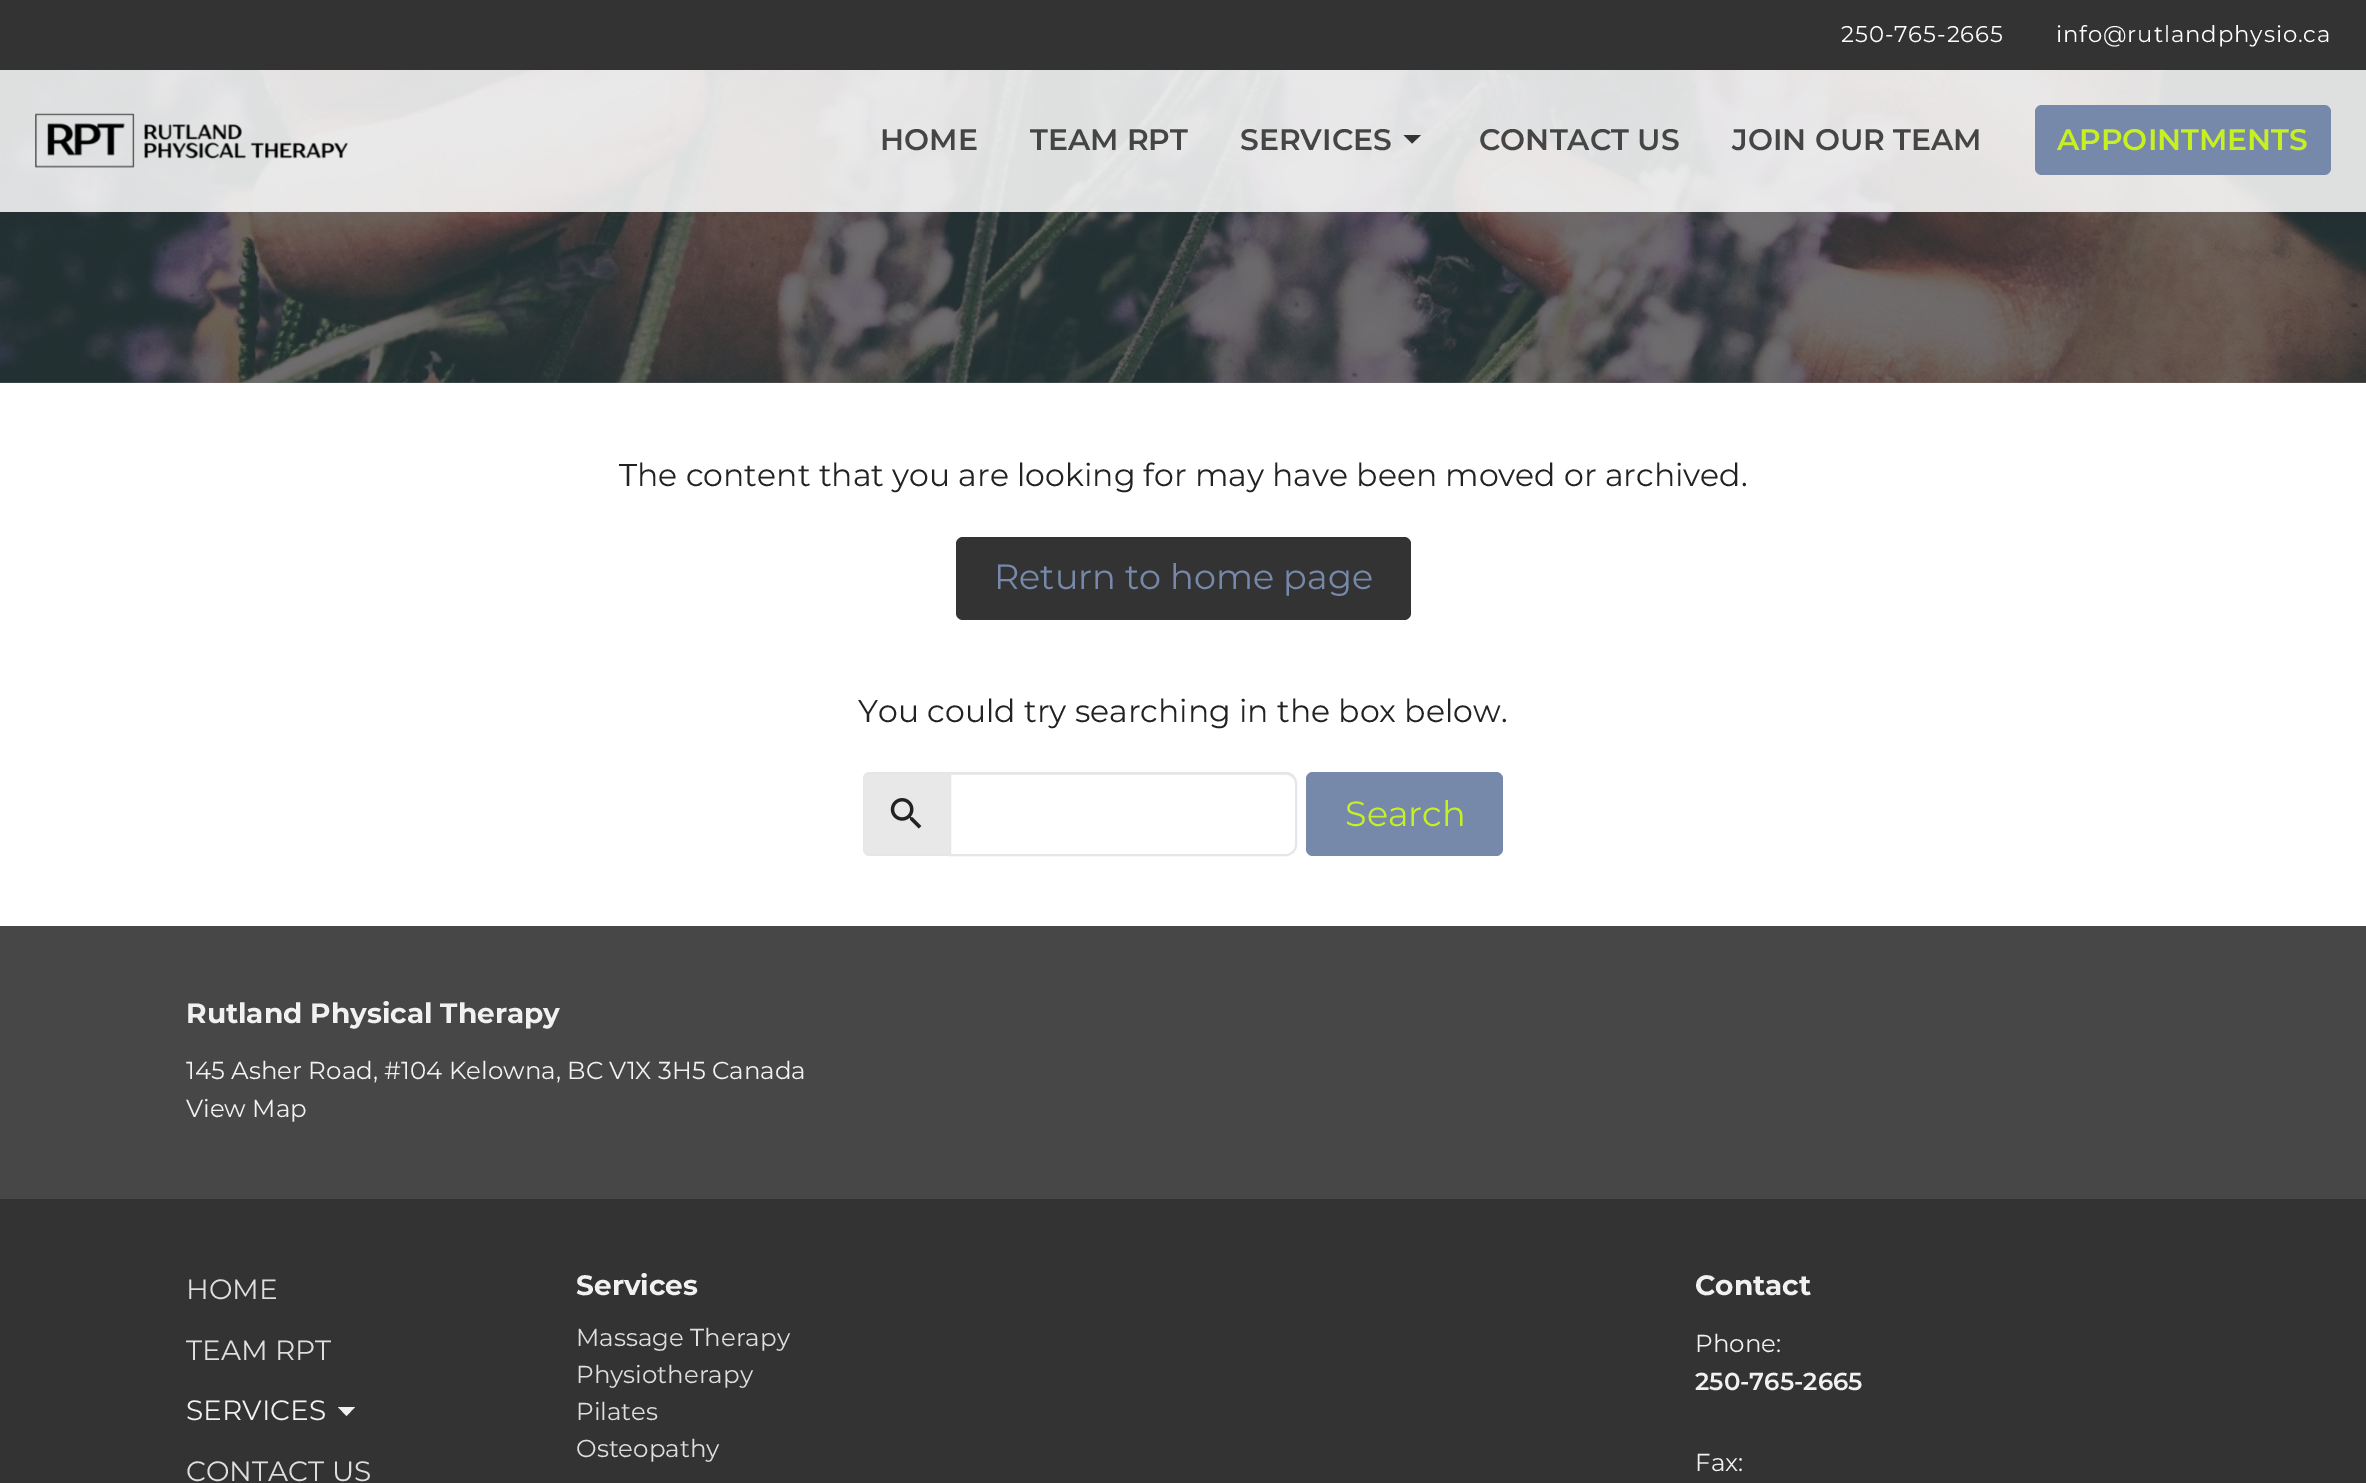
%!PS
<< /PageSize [2366 1483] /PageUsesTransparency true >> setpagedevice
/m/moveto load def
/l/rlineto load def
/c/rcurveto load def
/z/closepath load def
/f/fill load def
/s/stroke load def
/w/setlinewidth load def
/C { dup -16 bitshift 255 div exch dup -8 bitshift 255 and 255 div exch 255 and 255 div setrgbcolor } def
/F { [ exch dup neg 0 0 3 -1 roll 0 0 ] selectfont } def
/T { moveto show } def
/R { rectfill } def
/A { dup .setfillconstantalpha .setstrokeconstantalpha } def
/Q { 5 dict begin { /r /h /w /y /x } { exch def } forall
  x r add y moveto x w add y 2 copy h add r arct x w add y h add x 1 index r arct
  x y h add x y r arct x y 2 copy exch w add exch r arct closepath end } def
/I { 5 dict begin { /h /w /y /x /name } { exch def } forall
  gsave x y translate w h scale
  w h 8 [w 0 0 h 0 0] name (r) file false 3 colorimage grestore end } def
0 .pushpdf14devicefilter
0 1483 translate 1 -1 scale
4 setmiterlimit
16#FFFFFF C
0 0 2366 1483 R
16#333333 C
0 0 2366 70 R
/Montserrat-Regular 22.75 F
16#FFFFFF C
1841 42 m .9 0 (250-765-2665) ashow
2056 42 m .9 0 (info@rutlandphysio.ca) ashow
(2.rgb) 0 70 2366 313 I
0.85 A
0 70 2366 142 R
1 A
(1.rgb) 35 113 313 55 I
/Montserrat-SemiBold 29.75 F
16#454545 C
(HOME) 880 150 T
(TEAM RPT) 1030 150 T
(SERVICES) 1240 150 T
16#333333 C
1403.5 135 m 8.5 8.5 l 9 -8.5 l z f
16#454545 C
(CONTACT US) 1479 150 T
(JOIN OUR TEAM) 1732 150 T
16#7789AB C
2035 105 296 70 7 Q f
16#C7F022 C
(APPOINTMENTS) 2057 150 T
/Montserrat-Regular 31.5 F
16#222222 C
(The content that you are looking for may have been moved or archived.) 619 486 T
16#333333 C
956 537 455 83 7 Q f
/Montserrat-Regular 35 F
16#7789AB C
(Return to home page) 994 589 T
/Montserrat-Regular 31.5 F
16#222222 C
(You could try searching in the box below.) 858 722 T
16#E8E8E8 C
870 772 m 79 0 l 0 84 l -79 0 l -4 0 -7 -3 -7 -7 c 0 -70 l 0 -4 3 -7 7 -7 c z f
16#E6E6E6 C
870 772 m 78 0 l 0 84 l -78 0 l -4 0 -7 -3 -7 -7 c 0 -70 l 0 -4 3 -7 7 -7 c z 870 774 m 78 0 l 0 80 l -78 0 l -3 0 -6 -2 -6 -5 c 0 -70 l 0 -3 3 -5 6 -5 c z eofill
(3.rgb) 890 798 32 31 I
16#ECECEC C
950 775 m 336 0 l 5 0 9 4 9 9 c 0 -5 -3 -10 -9 -10 c -336 0 l z f
16#E6E6E6 C
2 w
950 773 m 336 0 l 5.5 0 10 4.5 10 10 c 0 62 l 0 5.5 -4.5 10 -10 10 c -336 0 l z s
16#7789AB C
1306 772 197 84 7 Q f
/Montserrat-Regular 35 F
16#C7F022 C
(Search) 1345 826 T
16#474747 C
0 926 2366 273 R
/Montserrat-Bold 28 F
16#F1F1F1 C
(Rutland Physical Therapy) 186 1023 T
/Montserrat-Regular 24.5 F
(145 Asher Road, #104 Kelowna, BC V1X 3H5 Canada) 186 1079 T
(View Map) 186 1117 T
16#333333 C
0 1199 2366 284 R
/Montserrat-Regular 28 F
16#DEDEDE C
(HOME) 186 1299 T
(TEAM RPT) 186 1360 T
16#F1F1F1 C
(SERVICES) 186 1420 T
338 1407 m 8.5 9 l 8.5 -9 l z f
16#DEDEDE C
(CONTACT US) 186 1481 T
/Montserrat-Bold 28 F
16#F1F1F1 C
(Services) 576 1295 T
/Montserrat-Regular 24.5 F
16#DEDEDE C
(Massage Therapy) 576 1346 T
(Physiotherapy) 576 1383 T
(Pilates) 576 1420 T
(Osteopathy) 576 1457 T
/Montserrat-Bold 28 F
16#F1F1F1 C
(Contact) 1695 1295 T
/Montserrat-Regular 24.5 F
(Phone:) 1695 1352 T
/Montserrat-SemiBold 24.5 F
(250-765-2665) 1695 1390 T
/Montserrat-Regular 24.5 F
(Fax:) 1695 1471 T
.poppdf14devicefilter showpage
